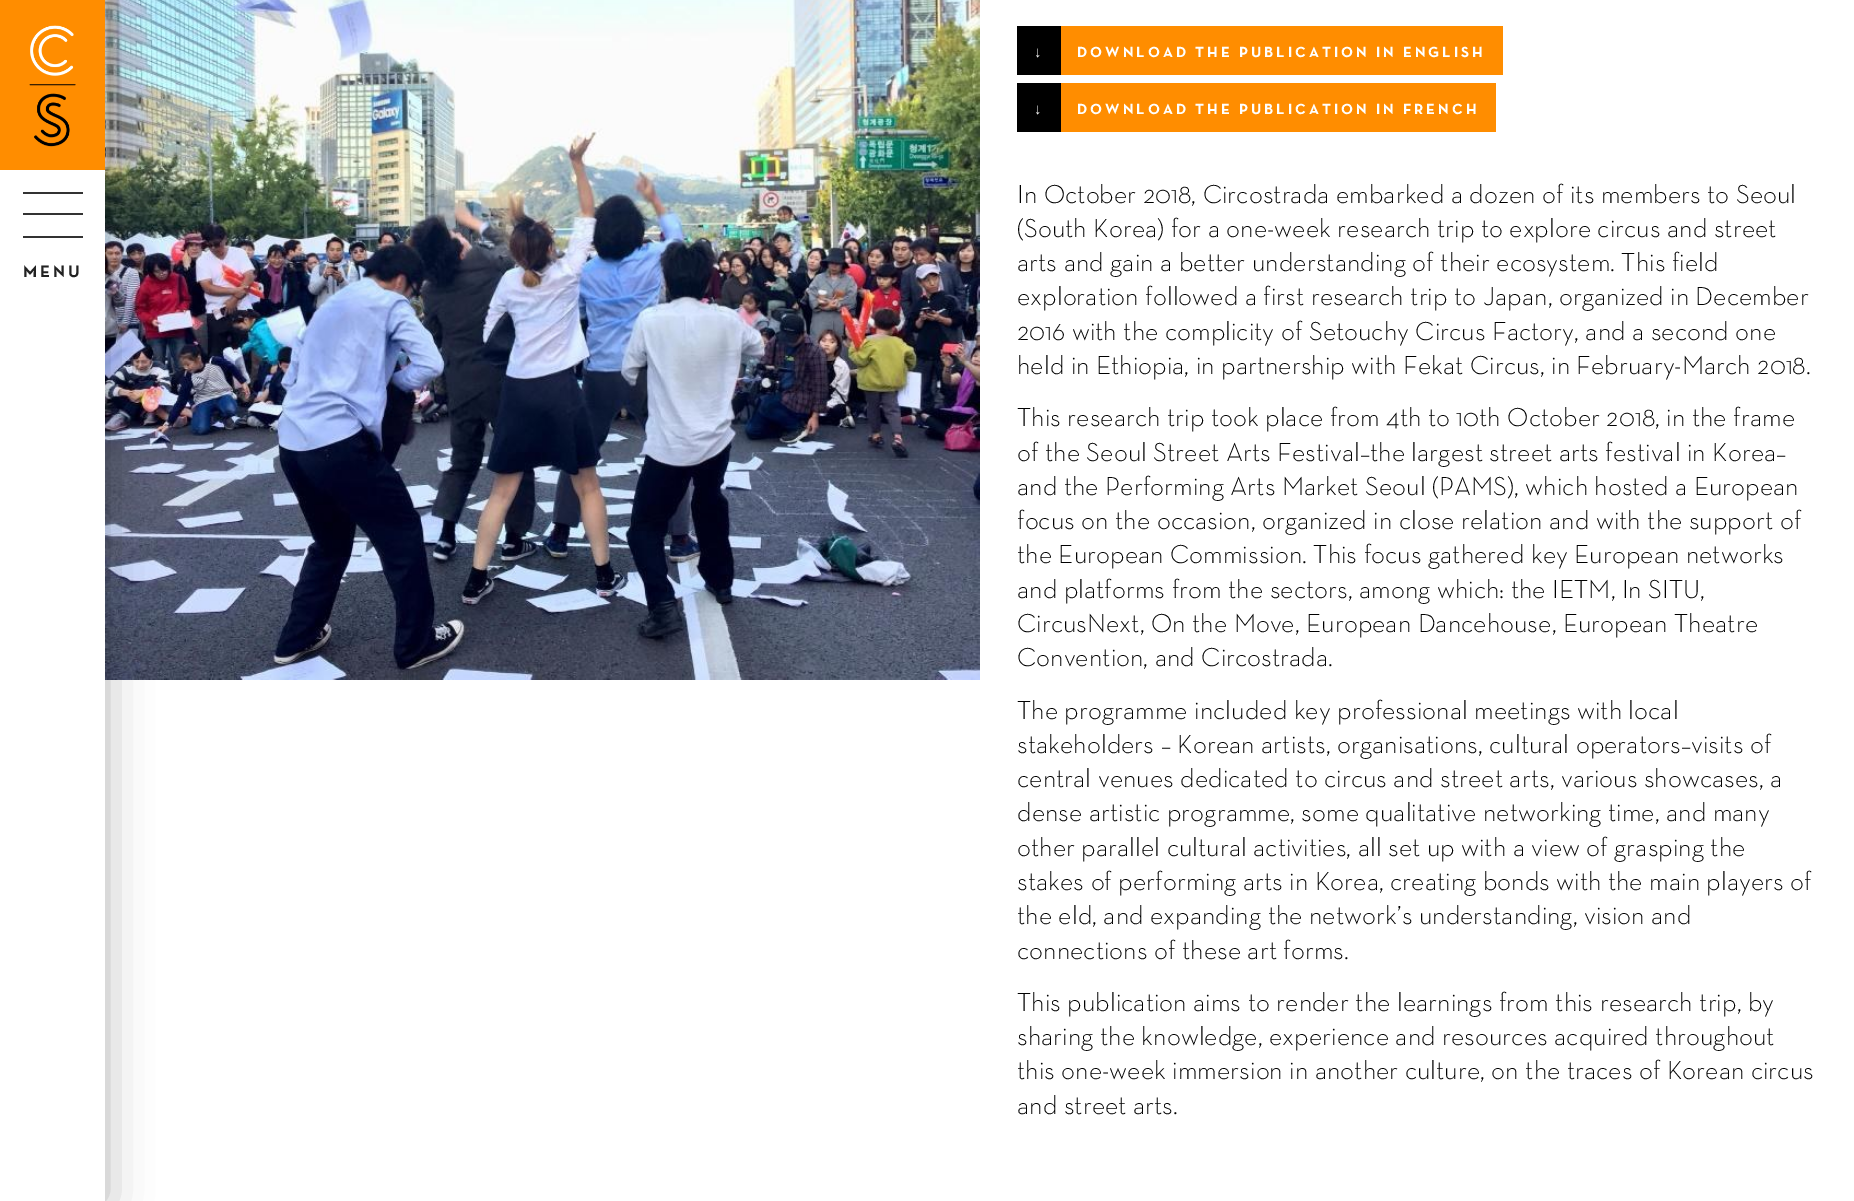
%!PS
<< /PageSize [1854 1201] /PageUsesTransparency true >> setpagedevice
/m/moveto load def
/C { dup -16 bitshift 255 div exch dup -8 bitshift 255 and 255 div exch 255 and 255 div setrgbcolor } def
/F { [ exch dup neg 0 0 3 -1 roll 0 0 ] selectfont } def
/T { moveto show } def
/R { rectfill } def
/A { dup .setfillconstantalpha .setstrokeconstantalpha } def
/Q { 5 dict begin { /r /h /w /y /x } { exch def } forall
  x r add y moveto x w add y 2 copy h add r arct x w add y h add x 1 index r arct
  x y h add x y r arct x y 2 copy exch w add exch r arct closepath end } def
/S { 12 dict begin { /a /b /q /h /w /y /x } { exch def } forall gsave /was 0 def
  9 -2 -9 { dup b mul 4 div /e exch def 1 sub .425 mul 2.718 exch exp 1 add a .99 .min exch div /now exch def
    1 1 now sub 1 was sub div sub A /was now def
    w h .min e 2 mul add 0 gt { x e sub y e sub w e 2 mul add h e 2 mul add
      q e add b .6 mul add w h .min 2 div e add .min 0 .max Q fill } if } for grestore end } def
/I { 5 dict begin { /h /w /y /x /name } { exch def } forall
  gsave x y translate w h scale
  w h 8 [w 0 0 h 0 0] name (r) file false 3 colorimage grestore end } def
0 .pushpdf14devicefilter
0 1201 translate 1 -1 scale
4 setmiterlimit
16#FFFFFF C
0 0 1854 1201 R
(2.rgb) 105 0 875 680 I
16#000000 C
0 0 105 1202 0 22.5 .3 S
16#FF8D00 C
0 0 105 170 R
(1.rgb) 29 25 47 122 I
16#FFFFFF C
0 170 105 1031 R
16#333333 C
23 192 60 2 R
23 236 60 2 R
23 213 60 2 R
/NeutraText-Bold 17 F
16#222222 C
23 277 m 3 0 (MENU) ashow
16#FF8D00 C
1061 26 442 49 R
16#000000 C
1017 26 44 49 R
/LiberationSans-Bold 15 F
16#FFFFFF C
1034 57 m 3 0 (↓) ashow
/NeutraText-Bold 15 F
1077 57 m 3 0 (DOWNLOAD THE PUBLICATION IN ENGLISH) ashow
16#FF8D00 C
1061 83 435 49 R
16#000000 C
1017 83 44 49 R
/LiberationSans-Bold 15 F
16#FFFFFF C
1034 114 m 3 0 (↓) ashow
/NeutraText-Bold 15 F
1077 114 m 3 0 (DOWNLOAD THE PUBLICATION IN FRENCH) ashow
/NeutraText-Light 26.4 F
16#000000 C
(In October 2018, Circostrada embarked a dozen of its members to Seoul) 1017 203 T
(\(South Korea\) for a one-week research trip to explore circus and street) 1017 237 T
(arts and gain a better understanding of their ecosystem. This field) 1017 271 T
(exploration followed a first research trip to Japan, organized in December) 1017 305 T
(2016 with the complicity of Setouchy Circus Factory, and a second one) 1017 340 T
(held in Ethiopia, in partnership with Fekat Circus, in February-March 2018.) 1017 374 T
(This research trip took place from 4th to 10th October 2018, in the frame) 1017 426 T
(of the Seoul Street Arts Festival–the largest street arts festival in Korea–) 1017 461 T
(and the Performing Arts Market Seoul \(PAMS\), which hosted a European) 1017 495 T
(focus on the occasion, organized in close relation and with the support of) 1017 529 T
(the European Commission. This focus gathered key European networks) 1017 563 T
(and platforms from the sectors, among which: the IETM, In SITU,) 1017 598 T
(CircusNext, On the Move, European Dancehouse, European Theatre) 1017 632 T
(Convention, and Circostrada.) 1017 666 T
(The programme included key professional meetings with local) 1017 719 T
(stakeholders – Korean artists, organisations, cultural operators–visits of) 1017 753 T
(central venues dedicated to circus and street arts, various showcases, a) 1017 787 T
(dense artistic programme, some qualitative networking time, and many) 1017 821 T
(other parallel cultural activities, all set up with a view of grasping the) 1017 856 T
(stakes of performing arts in Korea, creating bonds with the main players of) 1017 890 T
(the eld, and expanding the network’s understanding, vision and) 1017 924 T
(connections of these art forms.) 1017 959 T
(This publication aims to render the learnings from this research trip, by) 1017 1011 T
(sharing the knowledge, experience and resources acquired throughout) 1017 1045 T
(this one-week immersion in another culture, on the traces of Korean circus) 1017 1079 T
(and street arts.) 1017 1114 T
.poppdf14devicefilter showpage
